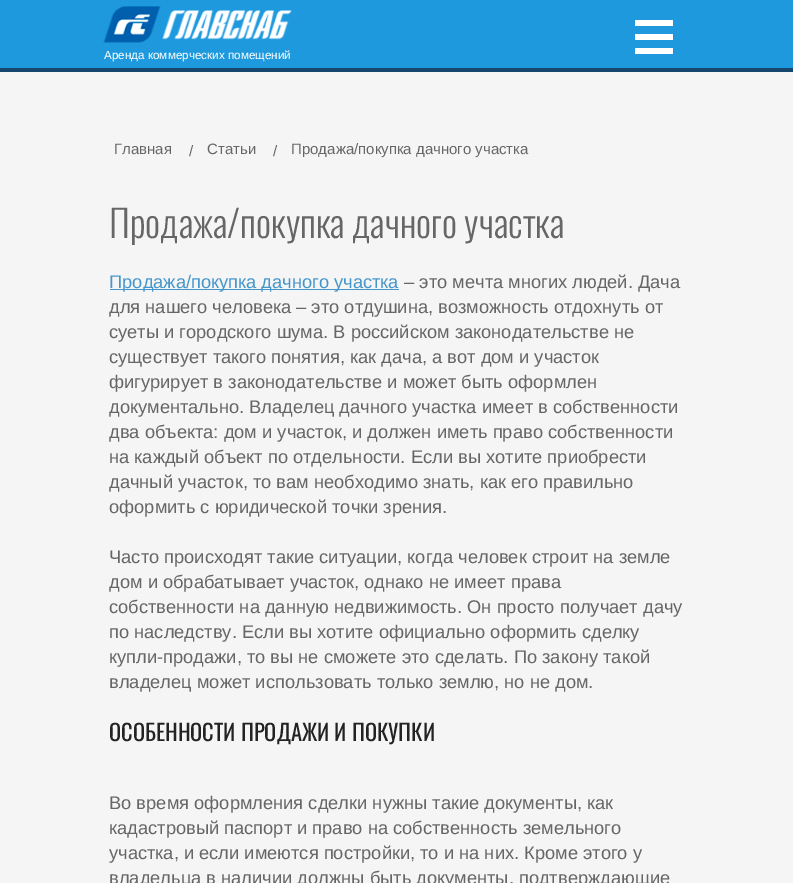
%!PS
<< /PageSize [793 883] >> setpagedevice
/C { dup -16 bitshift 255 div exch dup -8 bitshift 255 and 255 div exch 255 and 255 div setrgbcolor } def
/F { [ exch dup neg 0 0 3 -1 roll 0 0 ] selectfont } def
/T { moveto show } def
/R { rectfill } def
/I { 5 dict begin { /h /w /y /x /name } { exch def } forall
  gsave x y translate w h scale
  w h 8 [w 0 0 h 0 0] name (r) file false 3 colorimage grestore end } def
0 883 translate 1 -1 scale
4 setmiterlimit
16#17476F C
0 0 793 883 R
16#1E99DE C
0 0 793 68 R
16#FFFFFF C
635 20 38 6 R
635 34 38 6 R
635 48 38 6 R
(1.rgb) 103 6 189 37 I
/LiberationSans-Regular 11.7 F
(Аренда коммерческих помещений) 104 59 T
16#F5F5F5 C
0 72 793 811 R
/LiberationSans-Regular 15 F
16#666666 C
(Главная) 114 154 T
(/) 189 156 T
(Статьи) 207 154 T
(/) 273 156 T
(Продажа/покупка дачного участка) 291 154 T
/Oswald-Light 37.5 F
(Продажа/покупка дачного участка) 109 238 T
16#4596CB C
110 289 289 1 R
/LiberationSans-Regular 18.3 F
(Продажа/покупка дачного участка) 109 288 T
16#666666 C
(– это мечта многих людей. Дача) 404 288 T
(для нашего человека – это отдушина, возможность отдохнуть от) 109 313 T
(суеты и городского шума. В российском законодательстве не) 109 338 T
(существует такого понятия, как дача, а вот дом и участок) 109 363 T
(фигурирует в законодательстве и может быть оформлен) 109 388 T
(документально. Владелец дачного участка имеет в собственности) 109 413 T
(два объекта: дом и участок, и должен иметь право собственности) 109 438 T
(на каждый объект по отдельности. Если вы хотите приобрести) 109 463 T
(дачный участок, то вам необходимо знать, как его правильно) 109 488 T
(оформить с юридической точки зрения.) 109 513 T
(Часто происходят такие ситуации, когда человек строит на земле) 109 563 T
(дом и обрабатывает участок, однако не имеет права) 109 588 T
(собственности на данную недвижимость. Он просто получает дачу) 109 613 T
(по наследству. Если вы хотите официально оформить сделку) 109 638 T
(купли-продажи, то вы не сможете это сделать. По закону такой) 109 663 T
(владелец может использовать только землю, но не дом.) 109 688 T
/Oswald-Regular 22.5 F
16#242222 C
(ОСОБЕННОСТИ ПРОДАЖИ И ПОКУПКИ) 109 741 T
/LiberationSans-Regular 18.3 F
16#666666 C
(Во время оформления сделки нужны такие документы, как) 109 809 T
(кадастровый паспорт и право на собственность земельного) 109 834 T
(участка, и если имеются постройки, то и на них. Кроме этого у) 109 859 T
(владельца в наличии должны быть документы, подтверждающие) 109 884 T
showpage
